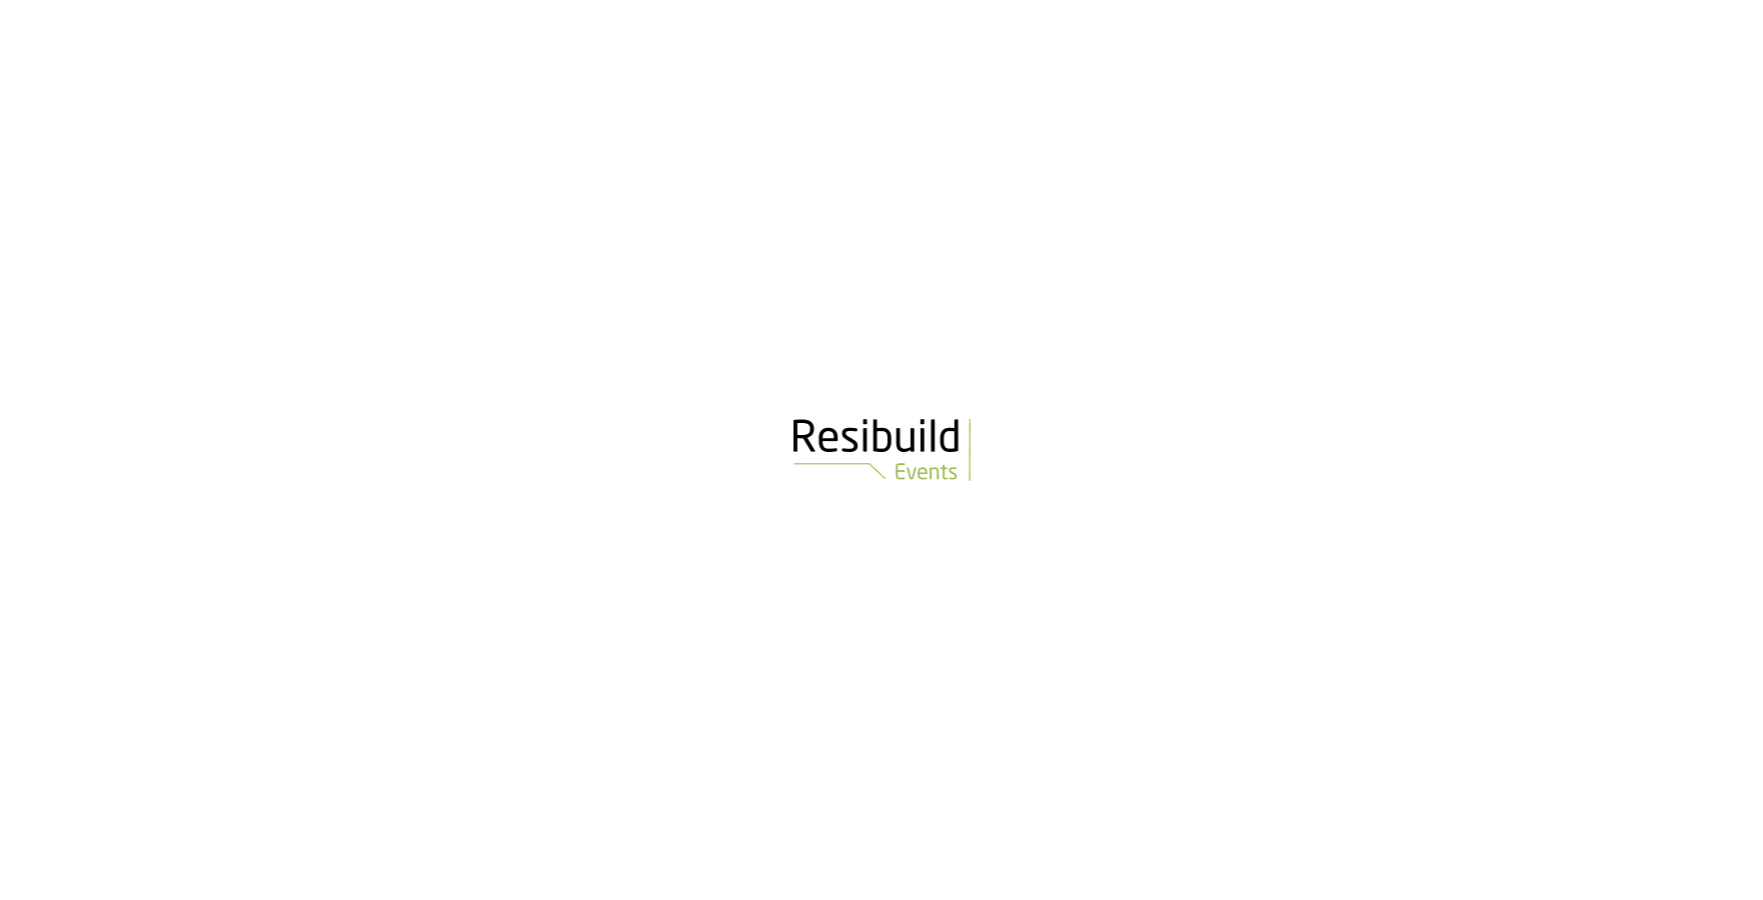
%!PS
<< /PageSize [1763 900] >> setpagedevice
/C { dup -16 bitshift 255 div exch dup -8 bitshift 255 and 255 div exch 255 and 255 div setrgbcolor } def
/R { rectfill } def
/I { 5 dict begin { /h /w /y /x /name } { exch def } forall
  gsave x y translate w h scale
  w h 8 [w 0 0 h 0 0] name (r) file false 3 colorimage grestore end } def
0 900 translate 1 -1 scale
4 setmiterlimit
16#FFFFFF C
0 0 1763 900 R
(1.rgb) 793 419 178 62 I
showpage
